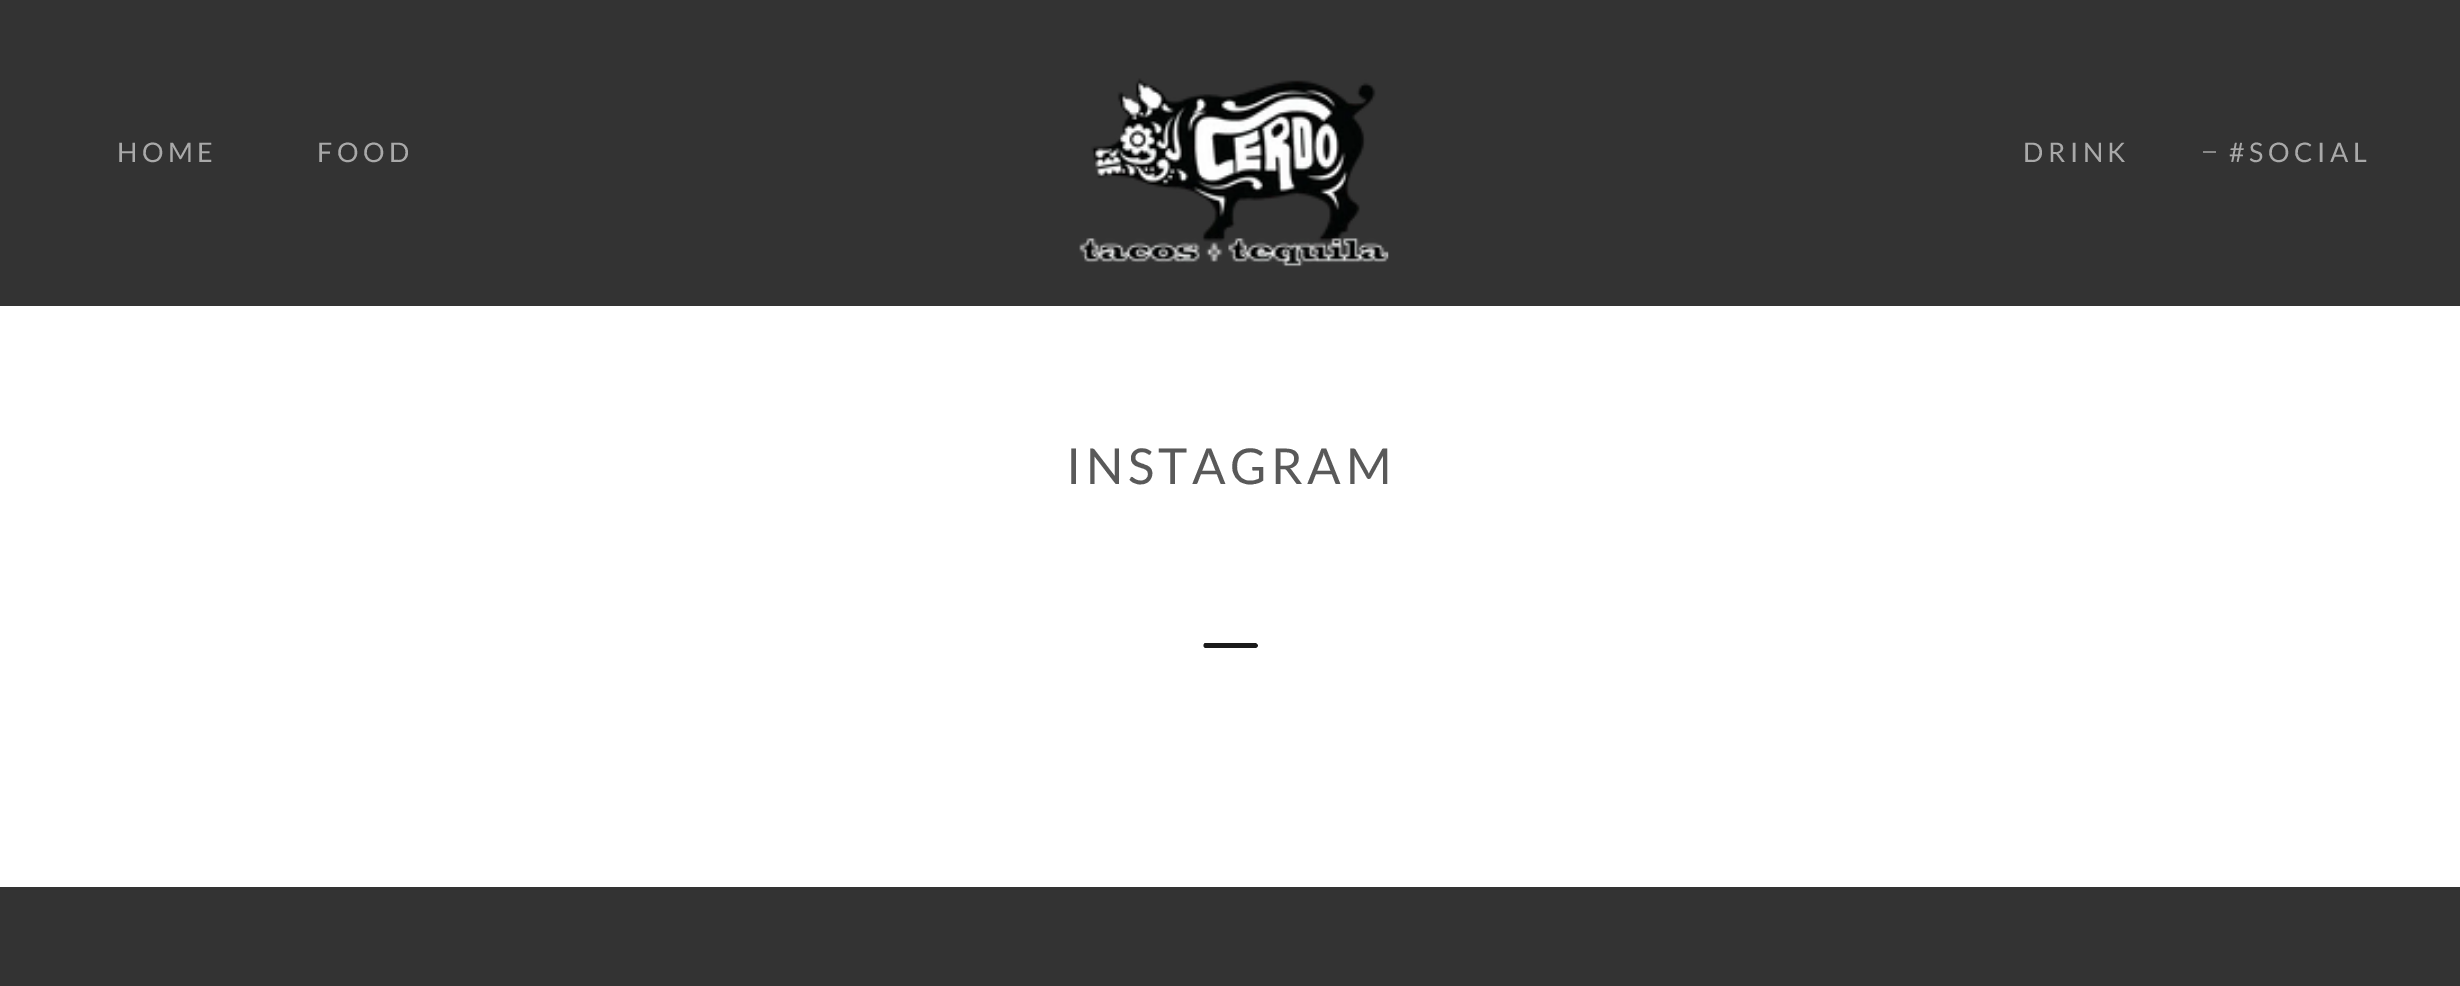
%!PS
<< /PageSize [2460 986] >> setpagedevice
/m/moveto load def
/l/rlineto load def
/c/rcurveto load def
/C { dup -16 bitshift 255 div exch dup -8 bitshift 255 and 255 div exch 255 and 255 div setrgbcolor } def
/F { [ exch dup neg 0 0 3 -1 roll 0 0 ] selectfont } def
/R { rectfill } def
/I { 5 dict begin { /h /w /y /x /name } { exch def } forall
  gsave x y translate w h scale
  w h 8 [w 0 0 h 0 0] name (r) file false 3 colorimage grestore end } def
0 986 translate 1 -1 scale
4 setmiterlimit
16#333333 C
0 0 2460 986 R
/Lato-Regular 27 F
16#A9A9A9 C
117 162 m 4.5 0 (HOME) ashow
317 162 m 4.5 0 (FOOD) ashow
(1.rgb) 1079 78 310 189 I
2023 162 m 4.5 0 (DRINK) ashow
16#898989 C
2203 151 13 2 R
16#A9A9A9 C
2229 162 m 4.5 0 (#SOCIAL) ashow
16#FFFFFF C
0 306 2460 581 R
/Lato-Regular 49.5 F
16#595959 C
1066 484 m 4.5 0 (INSTAGRAM) ashow
16#1B1B1B C
1255 648 m -49 0 l -3 0 -3 -4 -1 -5 c 51 0 l 2 2 l 0 1 -1 3 -3 3 c eofill
showpage
